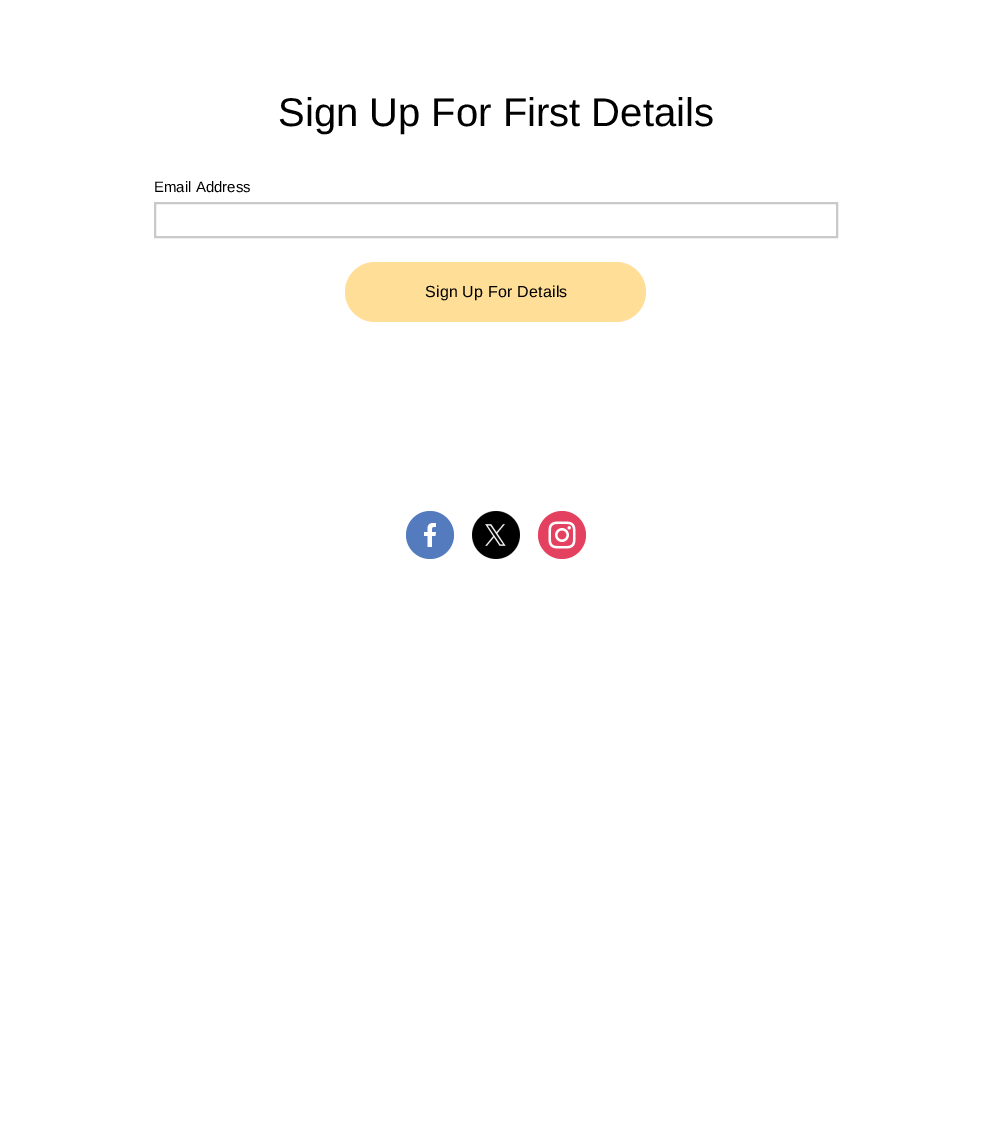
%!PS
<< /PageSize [991 1128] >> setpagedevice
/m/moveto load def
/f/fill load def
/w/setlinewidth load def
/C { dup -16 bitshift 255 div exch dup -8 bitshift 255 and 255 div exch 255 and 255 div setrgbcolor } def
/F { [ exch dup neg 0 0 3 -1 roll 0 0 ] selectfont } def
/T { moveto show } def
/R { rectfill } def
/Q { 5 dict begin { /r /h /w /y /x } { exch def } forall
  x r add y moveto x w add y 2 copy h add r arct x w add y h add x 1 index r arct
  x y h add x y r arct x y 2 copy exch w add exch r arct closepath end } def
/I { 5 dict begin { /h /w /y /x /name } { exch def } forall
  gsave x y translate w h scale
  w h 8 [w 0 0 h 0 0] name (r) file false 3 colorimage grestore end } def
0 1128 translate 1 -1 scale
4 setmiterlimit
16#FFFFFF C
0 0 991 1128 R
/LiberationSans-Regular 40 F
16#000000 C
(Sign Up For First Details) 278 126 T
/LiberationSans-Regular 15 F
(Email Address) 154 192 T
16#C9C9C9 C
2 w
155 203 682 34 rectstroke
16#FFDE97 C
345 262 301 60 30 Q f
/LiberationSans-Regular 16 F
16#000000 C
425 297 m .2 0 (Sign Up For Details) ashow
(1.rgb) 406 511 48 48 I
(2.rgb) 472 511 48 48 I
(3.rgb) 538 511 48 48 I
showpage
